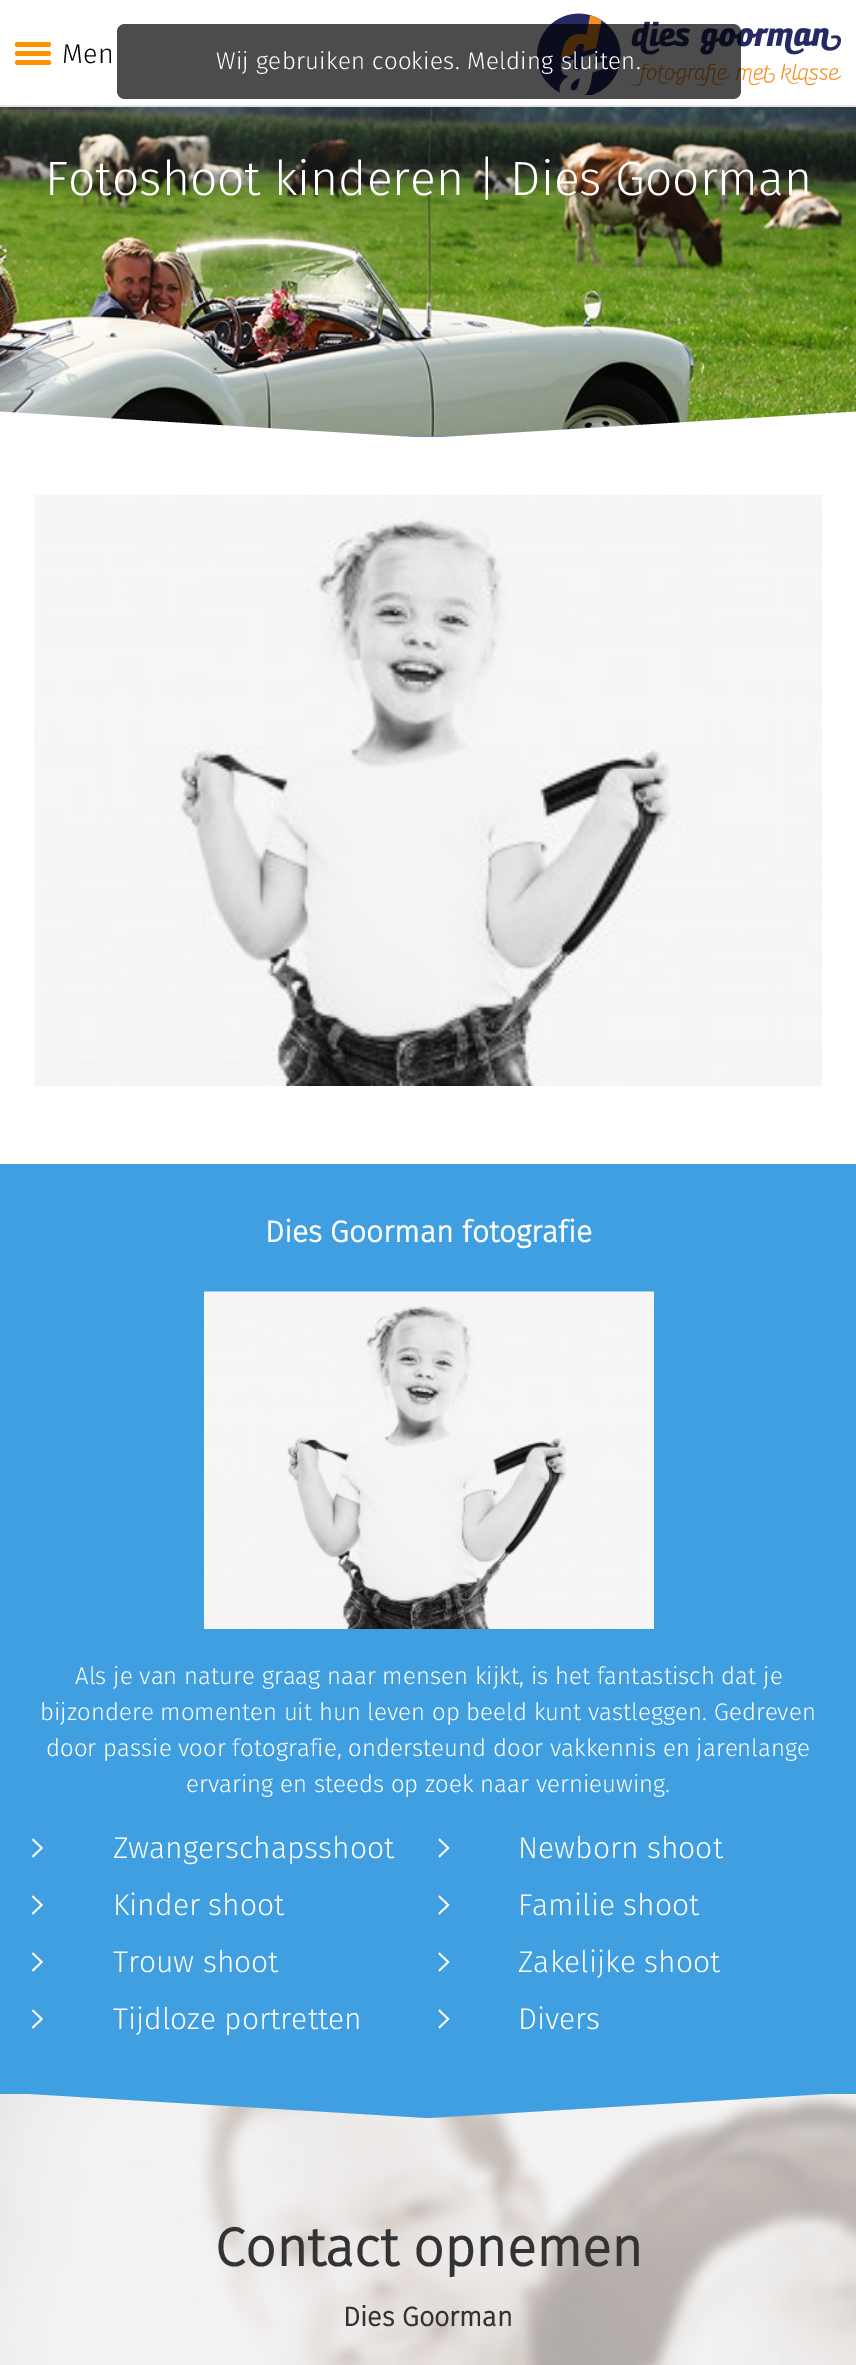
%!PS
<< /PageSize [856 2365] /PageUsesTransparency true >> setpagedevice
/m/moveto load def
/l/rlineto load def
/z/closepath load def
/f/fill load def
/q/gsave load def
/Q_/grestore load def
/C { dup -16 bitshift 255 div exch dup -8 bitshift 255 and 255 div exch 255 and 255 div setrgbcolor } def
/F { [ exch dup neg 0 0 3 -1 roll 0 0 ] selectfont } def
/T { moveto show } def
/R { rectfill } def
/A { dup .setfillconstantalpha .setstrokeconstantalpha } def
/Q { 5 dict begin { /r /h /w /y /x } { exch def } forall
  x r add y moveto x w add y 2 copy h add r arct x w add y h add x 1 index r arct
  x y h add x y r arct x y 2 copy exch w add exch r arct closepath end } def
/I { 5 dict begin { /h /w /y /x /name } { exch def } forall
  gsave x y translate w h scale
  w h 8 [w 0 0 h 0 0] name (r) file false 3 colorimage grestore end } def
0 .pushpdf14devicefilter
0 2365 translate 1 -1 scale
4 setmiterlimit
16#FFFFFF C
0 0 856 2365 R
16#E3E6E8 C
0 105 856 2 R
(1.rgb) 537 13 305 82 I
16#FF9000 C
15 51 36 5 2.5 Q f
15 42 36 5 2.5 Q f
15 60 36 5 2.5 Q f
/FiraSans-Light 27 F
16#000000 C
(Men) 62 63 T
0.7 A
117 24 624 75 8 Q f
/FiraSans-Light 24 F
1 A
16#FFFFFF C
216 69 m .25 0 (Wij gebruiken cookies. Melding sluiten.) ashow
16#409FE1 C
396 436 65 1 R
(2.rgb) 0 107 856 330 I
/FiraSans-Light 48 F
16#FFFFFF C
(Fotoshoot kinderen | Dies Goorman) 45 195 T
q
0 378 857 59 rectclip
428 438 m -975 -60 l 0 60 l 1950 0 l 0 -60 l z f
Q_
(3.rgb) 34 495 788 591 I
16#409FE1 C
0 1164 856 930 R
/FiraSans-Bold 30 F
16#FFFFFF C
(Dies Goorman fotografie) 265 1242 T
(4.rgb) 204 1291 450 338 I
/FiraSans-Light 24 F
(Als je van nature graag naar mensen kijkt, is het fantastisch dat je) 75 1684 T
(bijzondere momenten uit hun leven op beeld kunt vastleggen. Gedreven) 40 1720 T
(door passie voor fotografie, ondersteund door vakkennis en jarenlange) 46 1756 T
(ervaring en steeds op zoek naar vernieuwing.) 186 1792 T
32 1840 m 1 -1.5 l 10 9.5 l -10 9.5 l -1 -1.5 l 8.5 -8 l f
/FiraSans-Light 30 F
(Zwangerschapsshoot) 113 1858 T
438.5 1840 m 1 -1.5 l 10 9.5 l -10 9.5 l -1 -1.5 l 8.5 -8 l f
(Newborn shoot) 518 1858 T
32 1897 m 1 -1.5 l 10 9.5 l -10 9.5 l -1 -1.5 l 8.5 -8 l f
(Kinder shoot) 113 1915 T
438.5 1897 m 1 -1.5 l 10 9.5 l -10 9.5 l -1 -1.5 l 8.5 -8 l f
(Familie shoot) 518 1915 T
32 1954 m 1 -1.5 l 10 9.5 l -10 9.5 l -1 -1.5 l 8.5 -8 l f
(Trouw shoot) 113 1972 T
438.5 1954 m 1 -1.5 l 10 9.5 l -10 9.5 l -1 -1.5 l 8.5 -8 l f
(Zakelijke shoot) 518 1972 T
32 2011 m 1 -1.5 l 10 9.5 l -10 9.5 l -1 -1.5 l 8.5 -8 l f
(Tijdloze portretten) 113 2029 T
438.5 2011 m 1 -1.5 l 10 9.5 l -10 9.5 l -1 -1.5 l 8.5 -8 l f
(Divers) 518 2029 T
(5.rgb) 0 2094 856 271 I
16#409FE1 C
14 2093 m 414 25 l 414 -25 l z f
/FiraSans-Bold 54 F
16#333333 C
(Contact opnemen) 215 2266 T
/FiraSans-Bold 27 F
(Dies Goorman) 343 2326 T
.poppdf14devicefilter showpage
